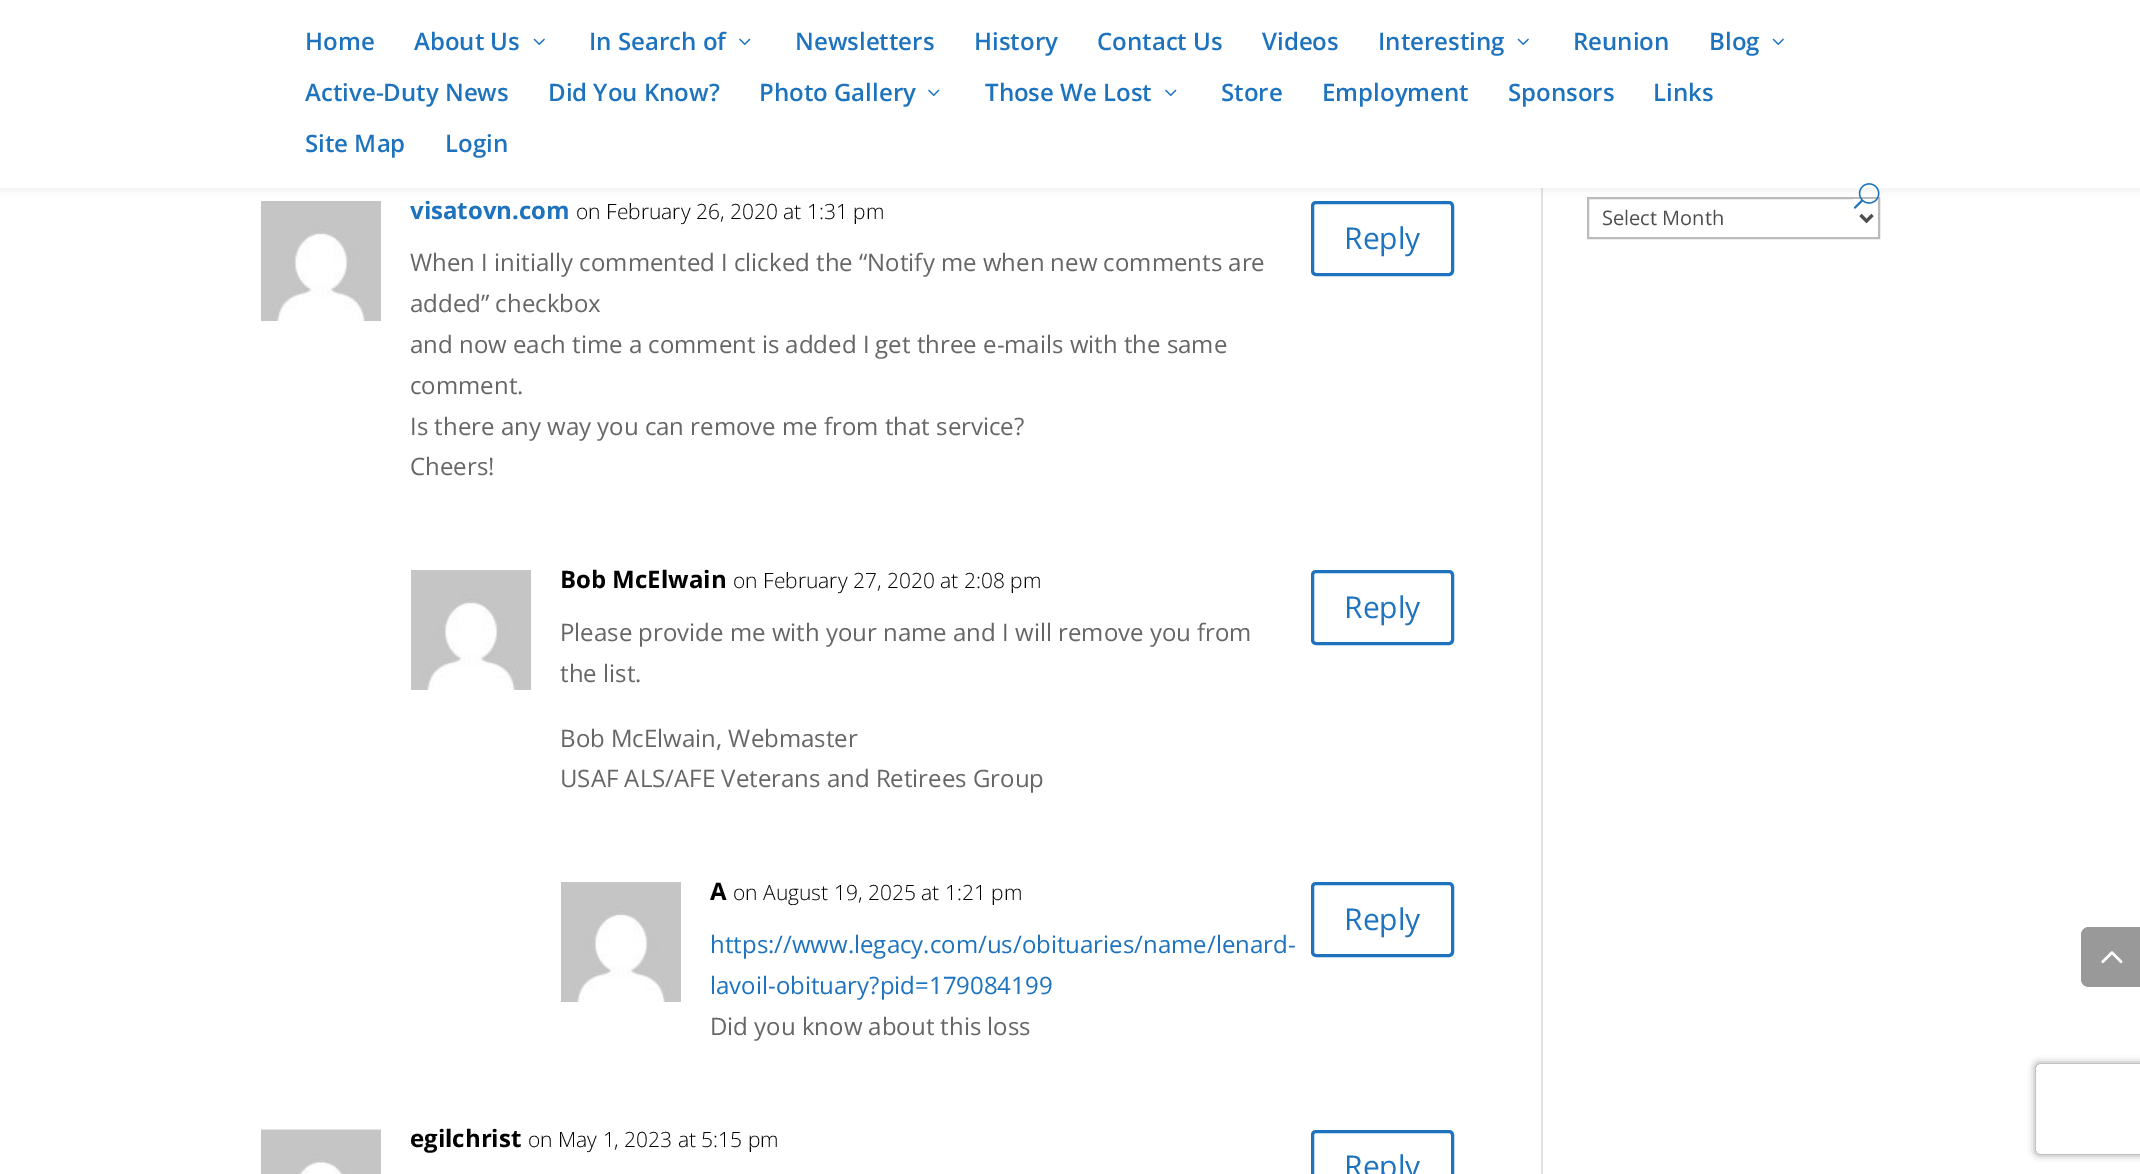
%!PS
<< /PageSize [2140 1174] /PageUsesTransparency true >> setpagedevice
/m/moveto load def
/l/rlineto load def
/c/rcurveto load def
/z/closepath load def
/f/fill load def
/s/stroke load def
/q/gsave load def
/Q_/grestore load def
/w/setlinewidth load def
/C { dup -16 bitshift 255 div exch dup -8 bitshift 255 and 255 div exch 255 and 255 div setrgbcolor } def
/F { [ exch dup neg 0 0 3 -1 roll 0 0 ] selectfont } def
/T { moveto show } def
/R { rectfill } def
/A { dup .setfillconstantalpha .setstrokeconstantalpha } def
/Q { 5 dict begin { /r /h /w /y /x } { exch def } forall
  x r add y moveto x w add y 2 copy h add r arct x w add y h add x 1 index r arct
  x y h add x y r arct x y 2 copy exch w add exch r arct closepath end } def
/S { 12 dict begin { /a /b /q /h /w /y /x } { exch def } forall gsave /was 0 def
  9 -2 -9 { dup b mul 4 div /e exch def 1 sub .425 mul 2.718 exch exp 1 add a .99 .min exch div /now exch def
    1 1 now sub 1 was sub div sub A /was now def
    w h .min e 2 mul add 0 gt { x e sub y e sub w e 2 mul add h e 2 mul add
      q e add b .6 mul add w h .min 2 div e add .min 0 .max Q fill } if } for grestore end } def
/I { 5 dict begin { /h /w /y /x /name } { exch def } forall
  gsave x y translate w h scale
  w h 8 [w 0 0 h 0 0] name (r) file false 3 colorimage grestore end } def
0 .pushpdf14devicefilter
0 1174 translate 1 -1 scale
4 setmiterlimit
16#FFFFFF C
0 0 2140 1174 R
16#E2E2E2 C
1541 188 2 986 R
(4.rgb) 261 201 120 120 I
16#1E73BE C
3 w
1312.5 202.5 140 72 3.5 Q s
16#BBBBBB C
2 w
1588 198 291 40 rectstroke
16#000000 C
0 0 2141 188 0 5 .1 S
16#FFFFFF C
0 0 2140 188 R
/OpenSans-SemiBold 24 F
16#1E73BE C
(Home) 305 50 T
(About Us) 414 50 T
(1.rgb) 533 38 12 7 I
(In Search of) 589 50 T
(2.rgb) 739 38 12 7 I
(Newsletters) 795 50 T
(History) 974 50 T
(Contact Us) 1097 50 T
(Videos) 1262 50 T
(Interesting) 1378 50 T
(1.rgb) 1517 38 12 7 I
(Reunion) 1573 50 T
(Blog) 1709 50 T
(1.rgb) 1772 38 12 7 I
(Active-Duty News) 305 101 T
(Did You Know?) 548 101 T
(Photo Gallery) 759 101 T
(2.rgb) 928 89 12 7 I
(Those We Lost) 985 101 T
(2.rgb) 1165 89 12 7 I
(Store) 1221 101 T
(Employment) 1322 101 T
(Sponsors) 1508 101 T
(Links) 1653 101 T
(Site Map) 305 152 T
(Login) 445 152 T
(3.rgb) 1853 183 27 26 I
/OpenSans-Bold 24 F
(visatovn.com) 410 219 T
/OpenSans-Light 21 F
16#000000 C
(on February 26, 2020 at 1:31 pm) 576 219 T
/OpenSans-Regular 30 F
16#1E73BE C
(Reply) 1344 249 T
/OpenSans-Regular 24 F
16#666666 C
(When I initially commented I clicked the “Notify me when new comments are) 410 271 T
(added” checkbox) 410 312 T
(and now each time a comment is added I get three e-mails with the same) 410 353 T
(comment.) 410 394 T
(Is there any way you can remove me from that service?) 410 435 T
(Cheers!) 410 475 T
(5.rgb) 411 570 120 120 I
/OpenSans-Bold 24 F
16#000000 C
(Bob McElwain) 560 588 T
/OpenSans-Light 21 F
(on February 27, 2020 at 2:08 pm) 733 588 T
16#1E73BE C
3 w
1312.5 571.5 140 72 3.5 Q s
/OpenSans-Regular 30 F
(Reply) 1344 618 T
/OpenSans-Regular 24 F
16#666666 C
(Please provide me with your name and I will remove you from) 560 641 T
(the list.) 560 682 T
(Bob McElwain, Webmaster) 560 747 T
(USAF ALS/AFE Veterans and Retirees Group) 560 787 T
(6.rgb) 561 882 120 120 I
/OpenSans-Bold 24 F
16#000000 C
(A) 710 900 T
/OpenSans-Light 21 F
(on August 19, 2025 at 1:21 pm) 733 900 T
16#1E73BE C
1312.5 883.5 140 72 3.5 Q s
/OpenSans-Regular 30 F
(Reply) 1344 930 T
/OpenSans-Regular 24 F
(https://www.legacy.com/us/obituaries/name/lenard-) 710 953 T
(lavoil-obituary?pid=179084199) 710 994 T
16#666666 C
(Did you know about this loss) 710 1035 T
(7.rgb) 261 1129 120 45 I
/OpenSans-Bold 24 F
16#000000 C
(egilchrist) 410 1147 T
/OpenSans-Light 21 F
(on May 1, 2023 at 5:15 pm) 528 1147 T
16#1E73BE C
1312.5 1131.5 140 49 3.5 Q s
/OpenSans-Regular 30 F
(Reply) 1344 1177 T
16#4E4E4E C
1860.5 215 m 6 6 l 6 -6 l s
/OpenSans-Regular 20 F
(Select Month) 1602 225 T
16#999999 C
2089 927 m 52 0 l 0 60 l -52 0 l -4.5 0 -8 -3.5 -8 -8 c 0 -44 l 0 -4.5 3.5 -8 8 -8 c z f
(8.rgb) 2101 951 22 13 I
q
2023 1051 m 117 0 l 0 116 l -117 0 l z 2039 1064 m 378 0 l 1.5 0 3 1.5 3 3 c 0 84 l 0 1.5 -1.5 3 -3 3 c -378 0 l -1.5 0 -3 -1.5 -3 -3 c 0 -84 l 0 -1.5 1.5 -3 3 -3 c z eoclip newpath
16#808080 C
2036 1064 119 90 3 4 1 S
Q_
.poppdf14devicefilter showpage
